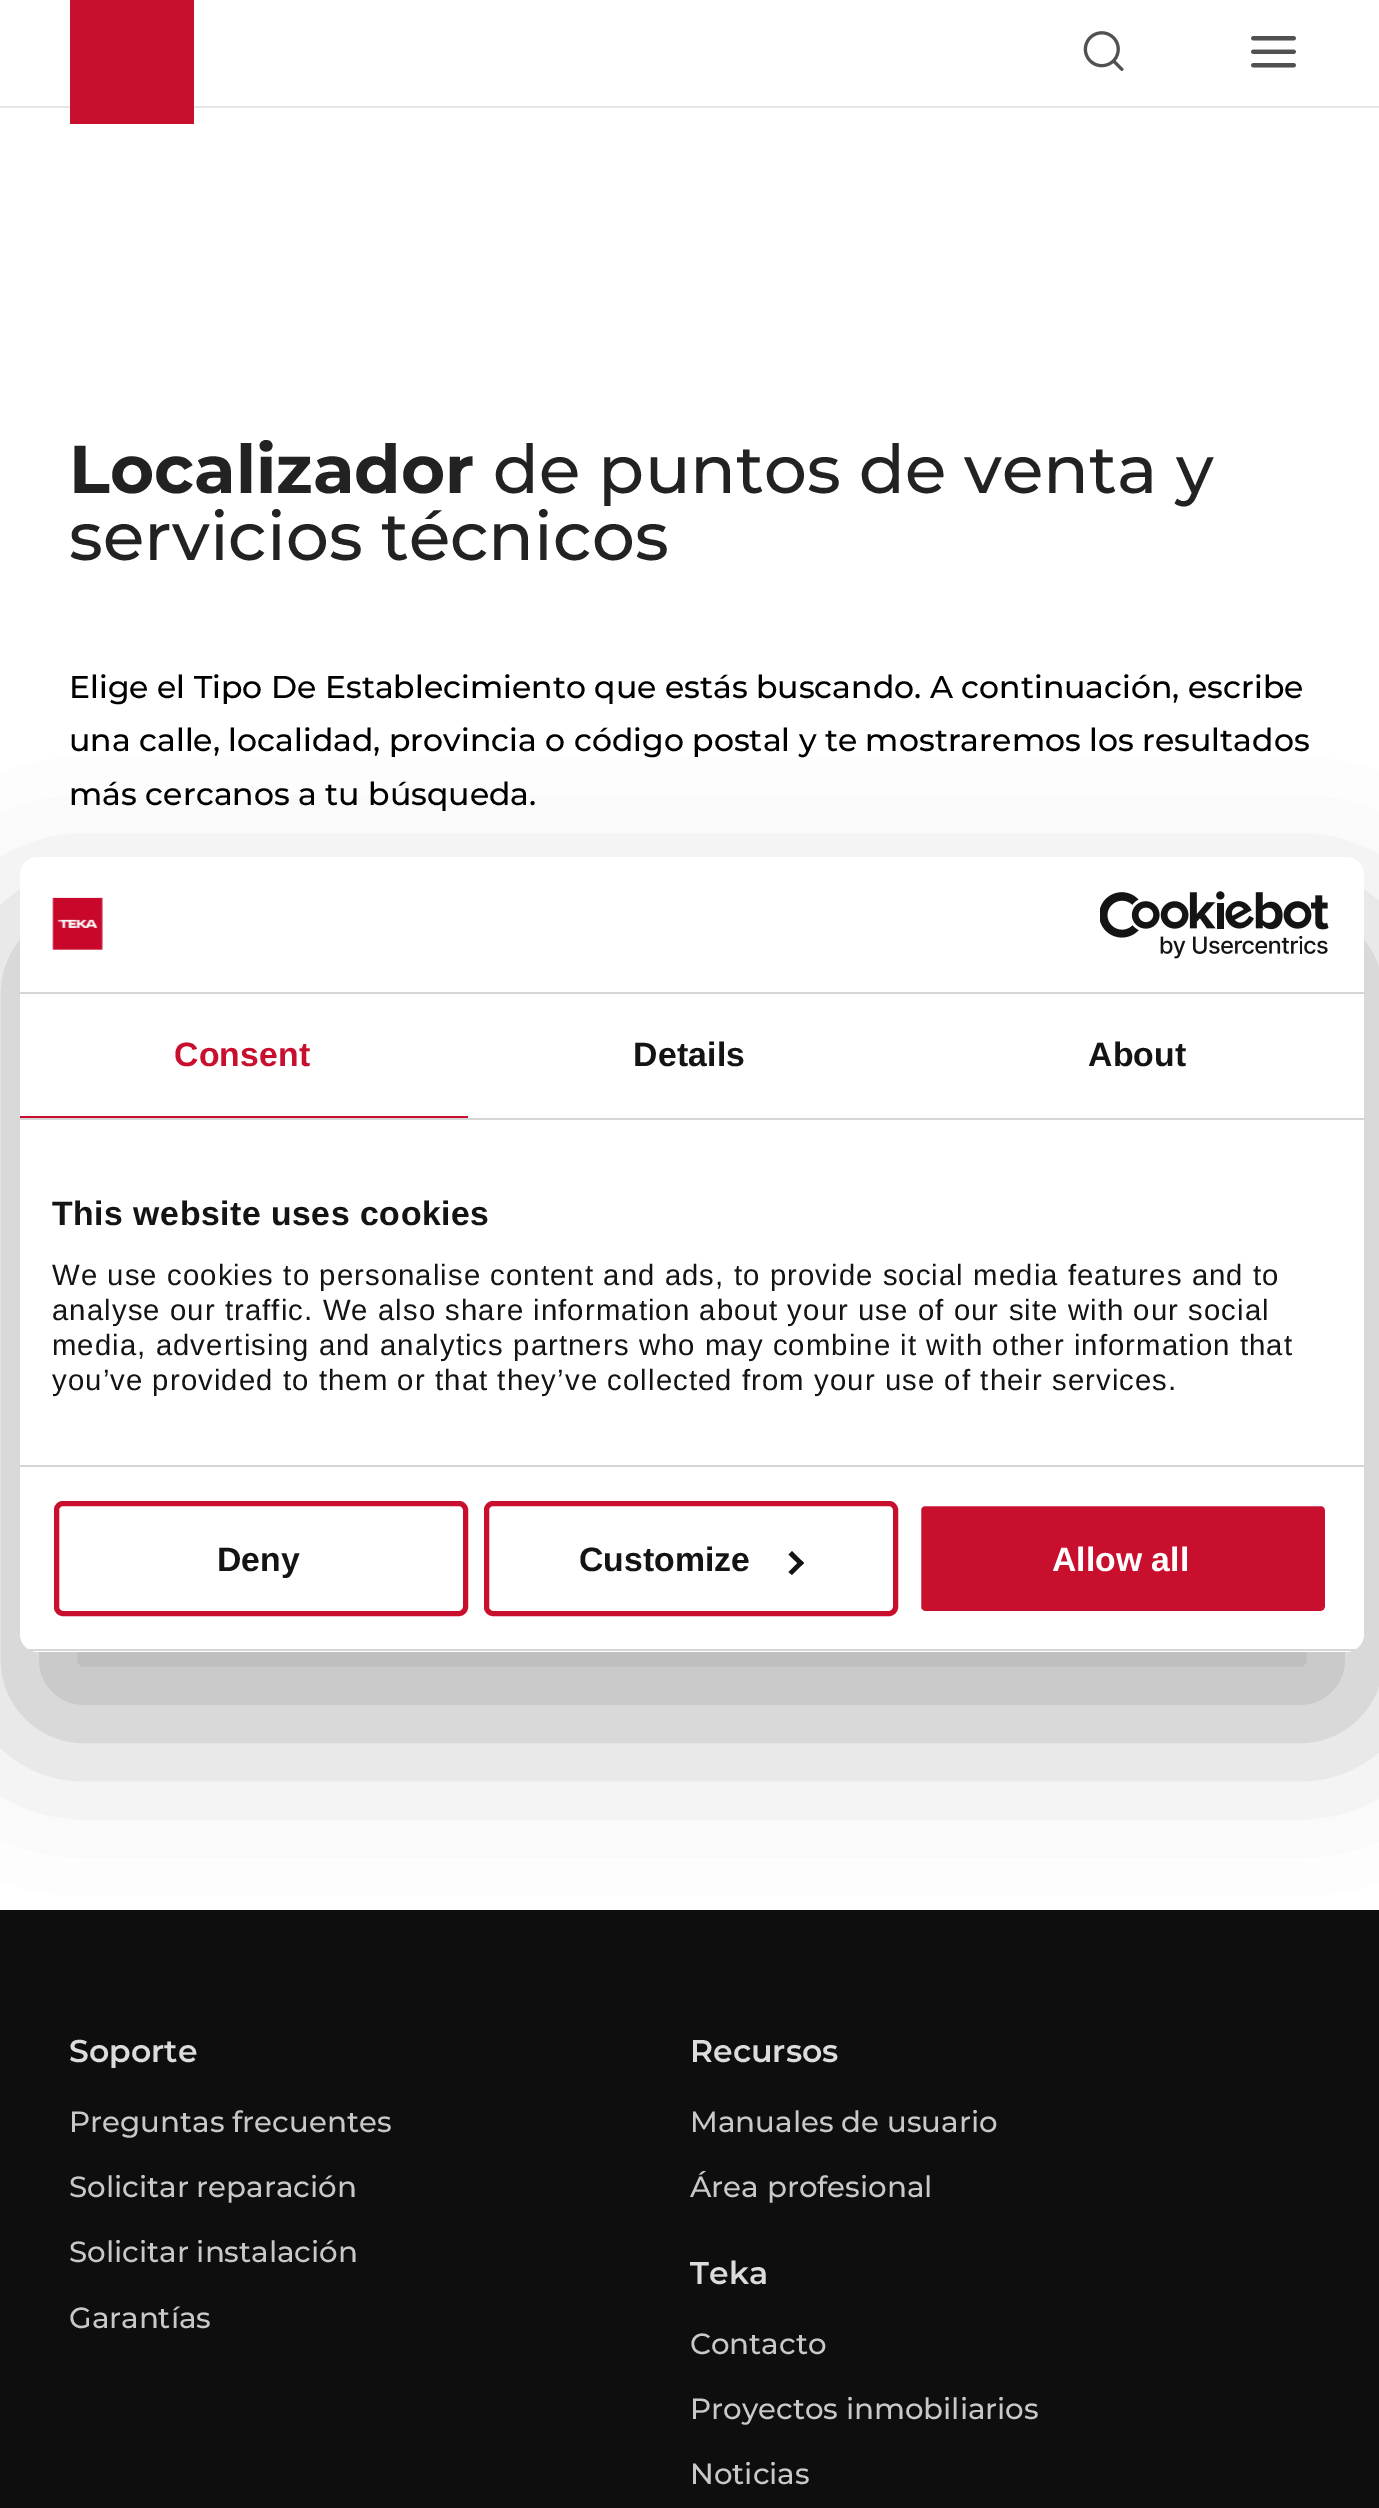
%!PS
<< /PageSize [1379 2508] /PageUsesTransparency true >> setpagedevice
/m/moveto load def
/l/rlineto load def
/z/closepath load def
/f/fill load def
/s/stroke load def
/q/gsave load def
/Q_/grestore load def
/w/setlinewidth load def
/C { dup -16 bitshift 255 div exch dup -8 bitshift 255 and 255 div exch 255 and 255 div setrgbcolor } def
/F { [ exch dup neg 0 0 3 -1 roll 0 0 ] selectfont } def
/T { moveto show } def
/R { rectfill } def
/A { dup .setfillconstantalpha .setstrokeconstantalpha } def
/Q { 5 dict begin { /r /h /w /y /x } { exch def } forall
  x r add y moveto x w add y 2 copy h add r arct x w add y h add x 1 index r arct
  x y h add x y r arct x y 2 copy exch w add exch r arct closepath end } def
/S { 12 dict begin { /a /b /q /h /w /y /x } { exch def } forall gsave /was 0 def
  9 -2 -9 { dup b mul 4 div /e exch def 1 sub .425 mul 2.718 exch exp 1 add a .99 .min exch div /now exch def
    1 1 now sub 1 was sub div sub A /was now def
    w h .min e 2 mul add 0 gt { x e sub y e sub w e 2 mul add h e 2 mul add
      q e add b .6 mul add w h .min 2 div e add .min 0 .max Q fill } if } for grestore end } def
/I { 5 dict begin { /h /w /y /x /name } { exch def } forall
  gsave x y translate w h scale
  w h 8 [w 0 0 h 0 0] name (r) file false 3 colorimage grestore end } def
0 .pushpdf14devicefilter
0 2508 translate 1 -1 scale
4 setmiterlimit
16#FFFFFF C
0 0 1379 2508 R
16#E6E6E6 C
0 106 1379 2 R
16#C8102E C
70 0 124 124 R
(1.rgb) 1083 31 41 40 I
(2.rgb) 1251 36 45 32 I
/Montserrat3-Thin 67.5 F
16#222222 C
(Localizador) 69 493 T
/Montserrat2-Thin 67.5 F
(de puntos de venta y) 493 493 T
(servicios técnicos) 69 560 T
/Montserrat2-Thin 31.5 F
16#000000 C
(Elige el Tipo De Establecimiento que estás buscando. A continuación, escribe) 69 698 T
(una calle, localidad, provincia o código postal y te mostraremos los resultados) 69 751 T
(más cercanos a tu búsqueda.) 69 805 T
16#0E0E0E C
0 1910 1379 598 R
/Montserrat-Thin 31.5 F
16#DCDCDC C
(Soporte) 69 2062 T
/Montserrat2-Thin 29.25 F
16#C8C8C8 C
(Preguntas frecuentes) 69 2132 T
(Solicitar reparación) 69 2197 T
(Solicitar instalación) 69 2262 T
(Garantías) 69 2328 T
/Montserrat-Thin 31.5 F
16#DCDCDC C
(Recursos) 690 2062 T
/Montserrat2-Thin 29.25 F
16#C8C8C8 C
(Manuales de usuario) 690 2132 T
(Área profesional) 690 2197 T
/Montserrat-Thin 31.5 F
16#DCDCDC C
(Teka) 690 2284 T
/Montserrat2-Thin 29.25 F
16#C8C8C8 C
(Contacto) 690 2354 T
(Proyectos inmobiliarios) 690 2419 T
(Noticias) 690 2484 T
16#000000 C
20 929 1344 795 18 76.5 .3 S
16#FFFFFF C
20 857 1344 795 18 Q f
16#D6D6D6 C
20 992 1344 2 R
(3.rgb) 52 897 51 53 I
(4.rgb) 1100 891 229 68 I
20 1118 1344 2 R
16#C8102E C
20 1116 448 2 R
/LiberationSans-Bold 33.75 F
174 1066 m .25 0 (Consent) ashow
16#141414 C
633 1066 m .25 0 (Details) ashow
1088 1066 m .25 0 (About) ashow
16#D6D6D6 C
20 1465 1344 2 R
16#141414 C
52 1225 m .55 0 (This website uses cookies) ashow
/LiberationSans-Regular 29.25 F
52 1285 m 1.12 0 (We use cookies to personalise content and ads, to provide social media features and to) ashow
52 1320 m 1.12 0 (analyse our traffic. We also share information about your use of our site with our social) ashow
52 1355 m 1.12 0 (media, advertising and analytics partners who may combine it with other information that) ashow
52 1390 m 1.12 0 (you’ve provided to them or that they’ve collected from your use of their services.) ashow
q
20 857 1344 795 18 Q clip newpath
16#D6D6D6 C
20 1649 1344 2 R
Q_
16#C8102E C
5 w
56.5 1503.5 409 110 6.5 Q s
/LiberationSans-Bold 33.75 F
16#141414 C
(Deny) 217 1571 T
16#C8102E C
486.5 1503.5 409 110 6.5 Q s
16#141414 C
(Customize) 579 1571 T
792 1551 m 12 12 l -3.5 3 l -12 -11.5 l z f
800.5 1560 m 3.5 3 l -12 12 l -3.5 -3 l z f
16#C8102E C
918.5 1503.5 409 110 6.5 Q q f Q_
16#FFFFFF C
s
(Allow all) 1052 1571 T
.poppdf14devicefilter showpage
